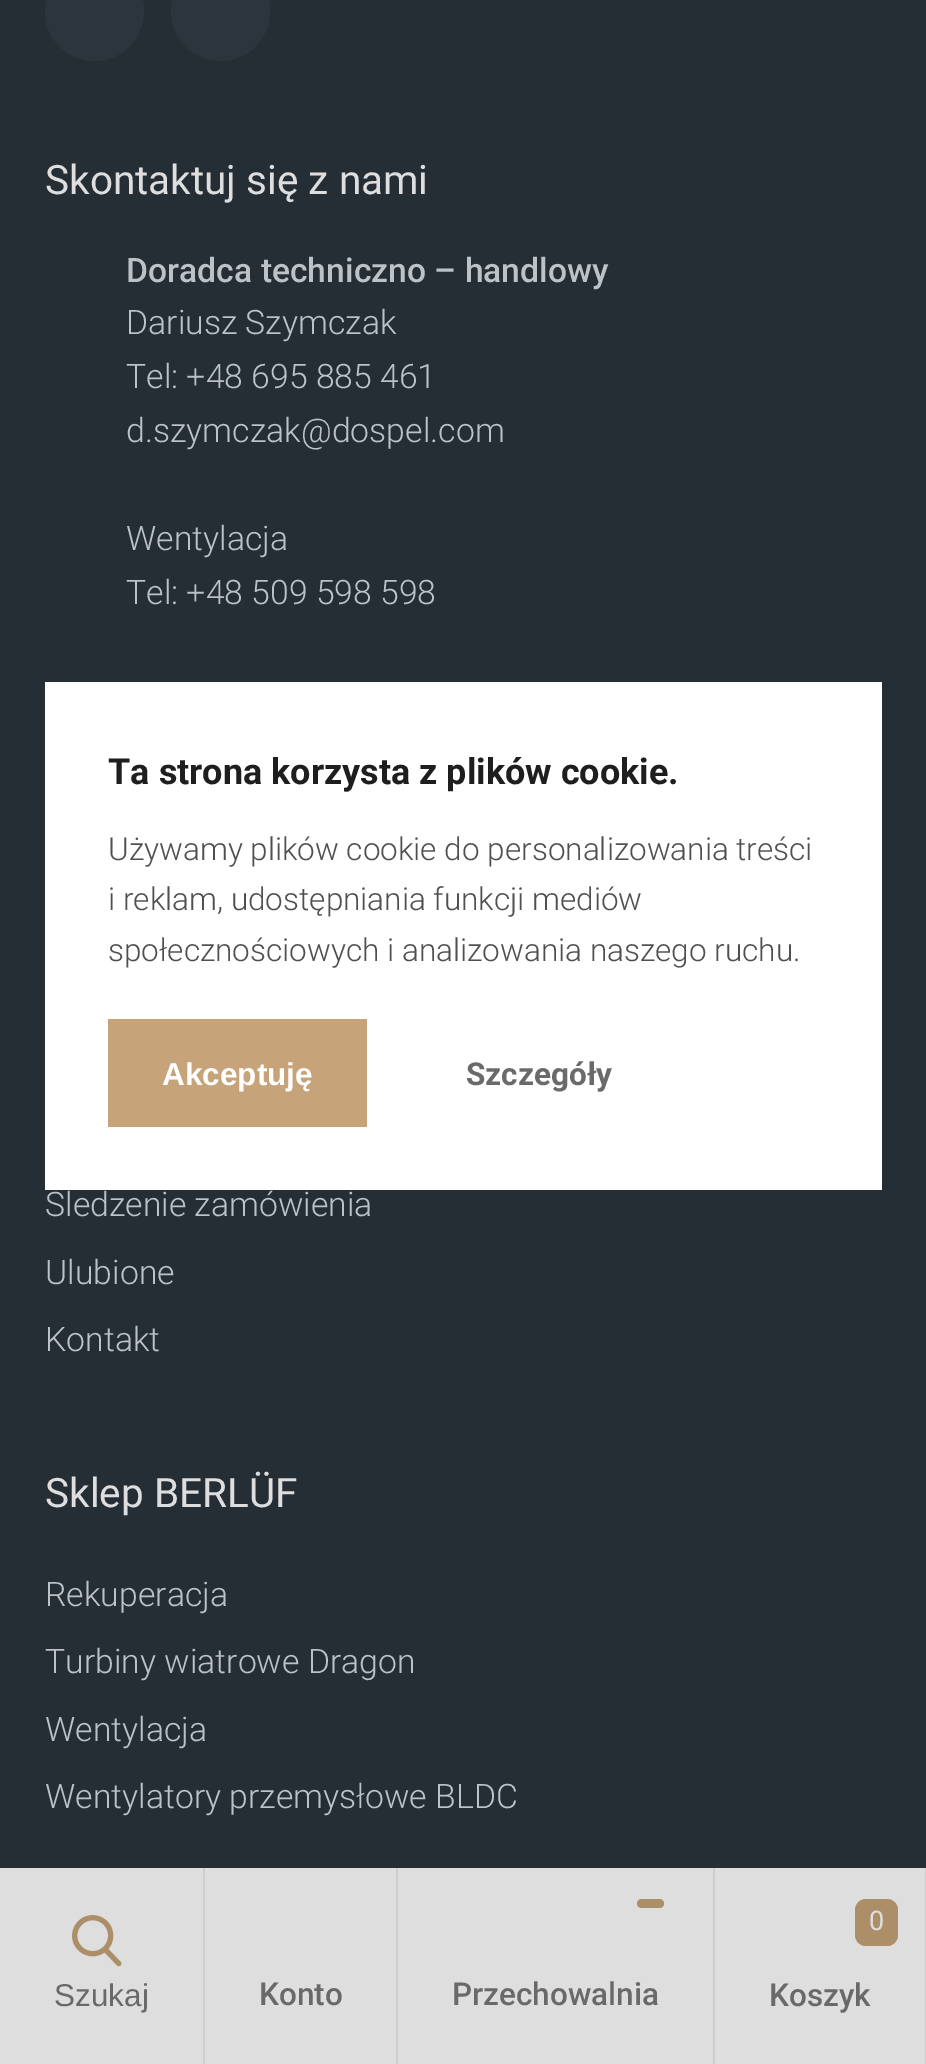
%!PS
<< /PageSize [926 2064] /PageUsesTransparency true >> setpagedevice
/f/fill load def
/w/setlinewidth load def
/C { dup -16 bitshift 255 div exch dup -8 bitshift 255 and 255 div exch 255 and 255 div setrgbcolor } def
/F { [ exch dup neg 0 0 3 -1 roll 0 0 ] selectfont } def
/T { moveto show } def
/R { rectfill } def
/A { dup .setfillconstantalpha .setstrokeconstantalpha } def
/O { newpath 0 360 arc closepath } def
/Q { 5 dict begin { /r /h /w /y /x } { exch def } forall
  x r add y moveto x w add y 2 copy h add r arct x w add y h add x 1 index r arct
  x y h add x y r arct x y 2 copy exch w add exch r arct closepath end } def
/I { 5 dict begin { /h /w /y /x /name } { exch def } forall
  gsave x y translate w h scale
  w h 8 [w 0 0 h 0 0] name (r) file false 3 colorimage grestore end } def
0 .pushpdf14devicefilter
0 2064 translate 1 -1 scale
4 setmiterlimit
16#2A343D C
0 0 926 2064 R
16#323D46 C
94.5 11.5 49.5 O f
220.5 11.5 49.5 O f
/Roboto-Regular 40.5 F
16#FFFFFF C
(Skontaktuj się z nami) 45 194 T
/Roboto-Medium 33.75 F
16#D9DFE5 C
(Doradca techniczno – handlowy) 126 282 T
/Roboto-Light 33.75 F
(Dariusz Szymczak) 126 334 T
(Tel: +48 695 885 461) 126 388 T
(d.szymczak@dospel.com) 126 442 T
(Wentylacja) 126 550 T
(Tel: +48 509 598 598) 126 604 T
(Śledzenie zamówienia) 45 1216 T
(Ulubione) 45 1284 T
(Kontakt) 45 1351 T
/Roboto-Regular 40.5 F
16#FFFFFF C
(Sklep BERLÜF) 45 1507 T
/Roboto-Light 33.75 F
16#D9DFE5 C
(Rekuperacja) 45 1606 T
(Turbiny wiatrowe Dragon) 45 1673 T
(Wentylacja) 45 1741 T
(Wentylatory przemysłowe BLDC) 45 1808 T
16#FFFFFF C
0 1868 203 196 R
16#ECECEC C
203 1868 2 196 R
(1.rgb) 72 1915 50 52 I
/LiberationSans-Regular 31.5 F
16#797979 C
(Szukaj) 54 2006 T
16#FFFFFF C
205 1868 191 196 R
16#ECECEC C
396 1868 2 196 R
/Roboto-Medium 31.5 F
16#797979 C
(Konto) 259 2005 T
16#FFFFFF C
398 1868 527 196 R
16#ECECEC C
713 1868 2 196 R
16#C6A379 C
637 1899 27 9 4.5 Q f
16#797979 C
(Przechowalnia) 452 2005 T
16#ECECEC C
925 1868 1 196 R
16#C6A379 C
855 1899 43 47 11 Q f
/Roboto-Regular 27 F
16#FFFFFF C
(0) 869 1930 T
/Roboto-Medium 31.5 F
16#797979 C
(Koszyk) 769 2006 T
0.13 A
16#000000 C
22500 w
-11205 -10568 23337 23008 rectstroke
1 A
16#FFFFFF C
45 682 837 508 R
/Roboto-Bold 36 F
16#1E1E1E C
(Ta strona korzysta z plików cookie.) 108 784 T
/Roboto-Light 31.5 F
16#4F4F4F C
(Używamy plików cookie do personalizowania treści) 108 860 T
(i reklam, udostępniania funkcji mediów) 108 910 T
(społecznościowych i analizowania naszego ruchu.) 108 961 T
16#C6A379 C
108 1019 259 108 R
/LiberationSans-Bold 31.5 F
16#FFFFFF C
(Akceptuję) 162 1085 T
/Roboto-Bold 31.5 F
16#6A6A6A C
(Szczegóły) 466 1085 T
.poppdf14devicefilter showpage
